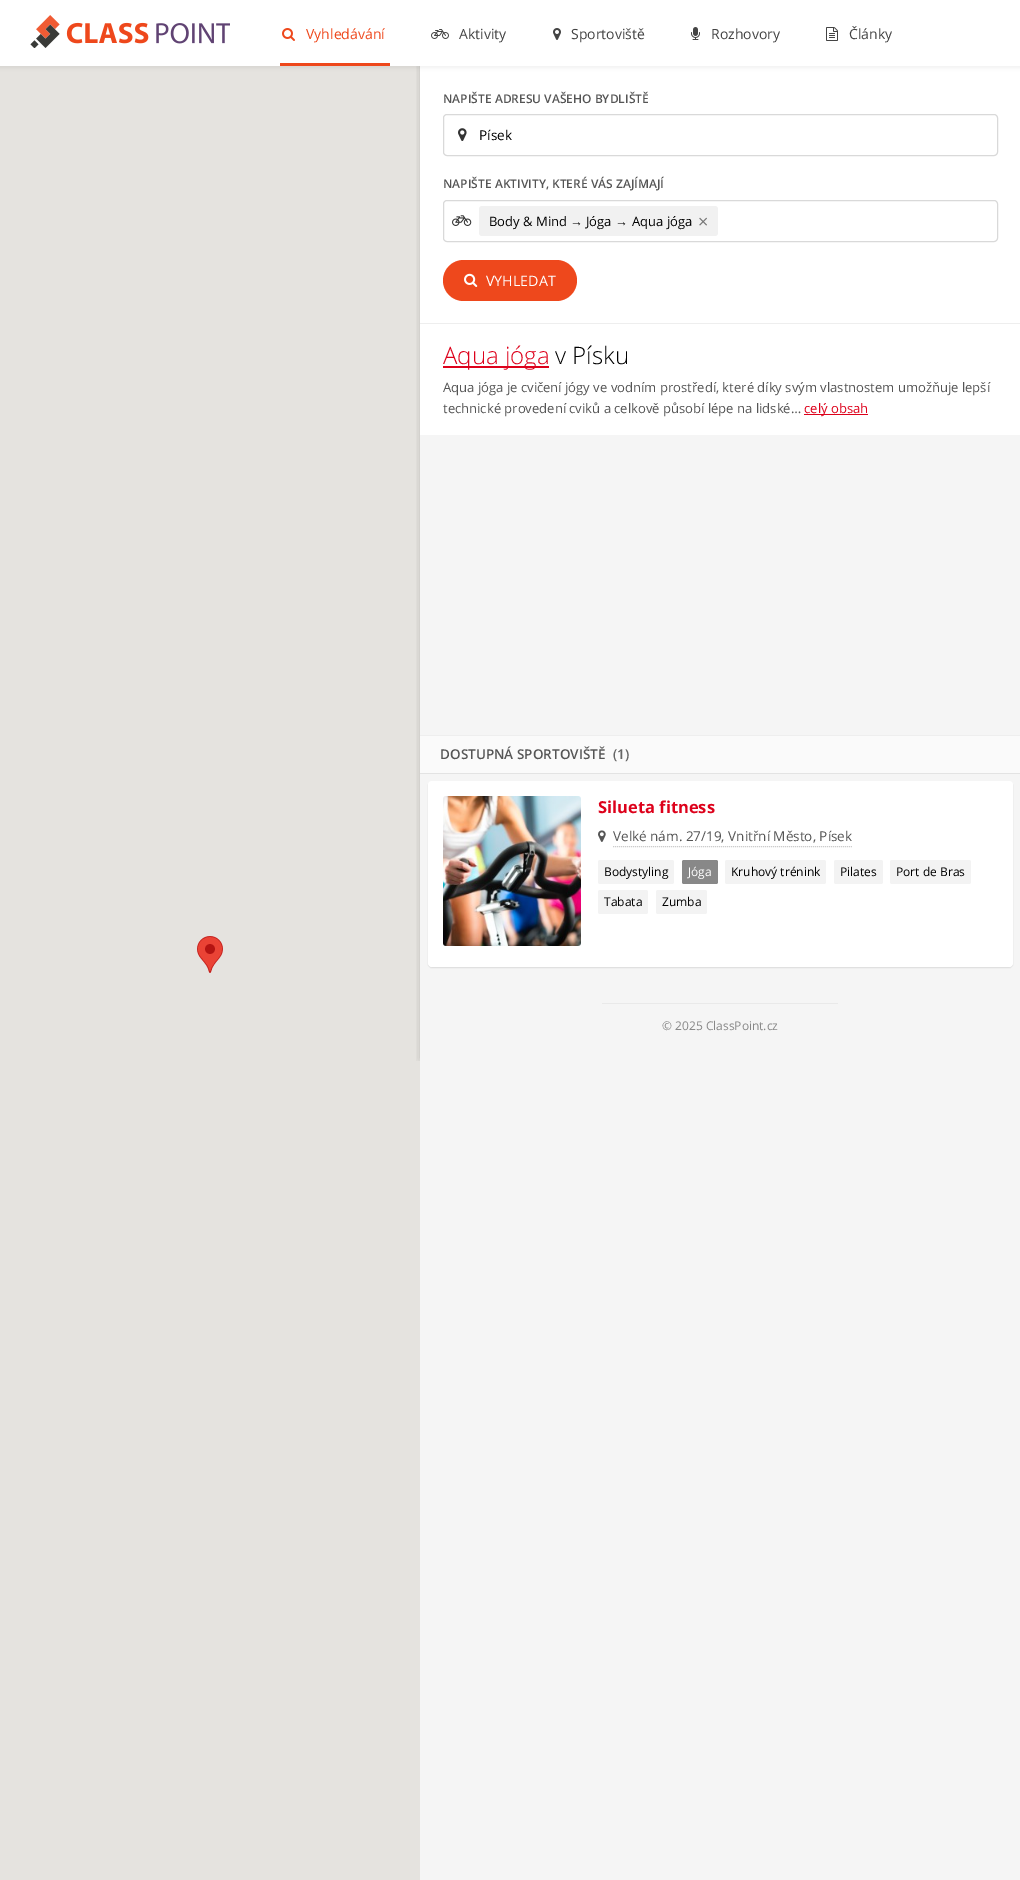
%!PS
<< /PageSize [1020 1880] /PageUsesTransparency true >> setpagedevice
/m/moveto load def
/l/rlineto load def
/f/fill load def
/s/stroke load def
/q/gsave load def
/Q_/grestore load def
/C { dup -16 bitshift 255 div exch dup -8 bitshift 255 and 255 div exch 255 and 255 div setrgbcolor } def
/F { [ exch dup neg 0 0 3 -1 roll 0 0 ] selectfont } def
/T { moveto show } def
/R { rectfill } def
/A { dup .setfillconstantalpha .setstrokeconstantalpha } def
/Q { 5 dict begin { /r /h /w /y /x } { exch def } forall
  x r add y moveto x w add y 2 copy h add r arct x w add y h add x 1 index r arct
  x y h add x y r arct x y 2 copy exch w add exch r arct closepath end } def
/S { 12 dict begin { /a /b /q /h /w /y /x } { exch def } forall gsave /was 0 def
  9 -2 -9 { dup b mul 4 div /e exch def 1 sub .425 mul 2.718 exch exp 1 add a .99 .min exch div /now exch def
    1 1 now sub 1 was sub div sub A /was now def
    w h .min e 2 mul add 0 gt { x e sub y e sub w e 2 mul add h e 2 mul add
      q e add b .6 mul add w h .min 2 div e add .min 0 .max Q fill } if } for grestore end } def
/I { 5 dict begin { /h /w /y /x /name } { exch def } forall
  gsave x y translate w h scale
  w h 8 [w 0 0 h 0 0] name (r) file false 3 colorimage grestore end } def
0 .pushpdf14devicefilter
0 1880 translate 1 -1 scale
4 setmiterlimit
16#F5F5F5 C
0 0 1020 1880 R
16#E5E3DF C
0 66 420 1814 R
q
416 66 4 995 rectclip
16#000000 C
420 58 600 1001 0 4 .15 S
Q_
16#FFFFFF C
420 66 600 257 R
16#000000 C
-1 0 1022 68 0 2 .05 S
16#FFFFFF C
0 0 1020 66 R
(1.rgb) 30 15 200 33 I
(2.rgb) 282 28 13 13 I
/OpenSans-Regular 14 F
16#EE481C C
(Vyhledávání) 306 39 T
280 63 110 3 R
(3.rgb) 431 29 18 10 I
16#444444 C
(Aktivity) 459 39 T
(4.rgb) 553 28 8 12 I
(Sportoviště) 571 39 T
(5.rgb) 691 27 9 13 I
(Rozhovory) 711 39 T
(6.rgb) 826 27 12 14 I
(Články) 849 39 T
(7.rgb) 197 936 26 37 I
/OpenSans-SemiBold 12 F
16#555555 C
(NAPIŠTE ADRESU VAŠEHO BYDLIŠTĚ) 443 103 T
16#D9D9D9 C
443.5 114.5 554 41 3.5 Q s
(8.rgb) 458 128 9 13 I
/OpenSans-Regular 13.5 F
16#000000 C
(Písek) 479 140 T
/OpenSans-SemiBold 12 F
16#555555 C
(NAPIŠTE AKTIVITY, KTERÉ VÁS ZAJÍMAJÍ) 443 188 T
16#D9D9D9 C
443.5 200.5 554 41 3.5 Q s
(9.rgb) 452 215 20 11 I
16#F1F1F1 C
479 206 239 30 3 Q f
/OpenSans-Regular 13 F
16#000000 C
(Body & Mind) 489 226 T
/LiberationSans-Regular 13 F
(→) 570 226 T
/OpenSans-Regular 13 F
(Jóga) 586 226 T
/LiberationSans-Regular 13 F
(→) 615 226 T
/OpenSans-Regular 13 F
(Aqua jóga) 632 226 T
/OpenSans-Regular 18 F
16#777777 C
(×) 698 228 T
16#EE481C C
443 260 134 41 20.5 Q f
(10.rgb) 464 273 14 14 I
/OpenSans-Regular 14.25 F
16#FFFFFF C
(VYHLEDAT) 486 286 T
420 324 600 111 R
16#EEEEEE C
420 323 600 1 R
16#DD011B C
443 366 106 2 R
/OpenSans-Light 24 F
(Aqua jóga) 443 364 T
16#000000 C
(v Písku) 555 364 T
/OpenSans-Regular 13.05 F
16#555555 C
(Aqua jóga je cvičení jógy ve vodním prostředí, které díky svým vlastnostem umožňuje lepší) 443 392 T
(technické provedení cviků a celkově působí lépe na lidské…) 443 413 T
16#DD011B C
804 414 64 1 R
(celý obsah) 804 413 T
16#FAFAFA C
420 736 600 37 R
16#EEEEEE C
420 735 600 1 R
16#E3E3E3 C
420 773 600 1 R
/OpenSans-SemiBold 13.5 F
16#555555 C
(DOSTUPNÁ SPORTOVIŠTĚ) 440 759 T
16#666666 C
(\(1\)) 613 759 T
16#DDDDDD C
428 782 585 186 4 .5 1 S
16#FFFFFF C
428 781 585 186 4 Q f
(11.rgb) 443 796 138 150 I
/OpenSans-Bold 16.5 F
16#DD011B C
(Silueta fitness) 598 813 T
(12.rgb) 598 830 8 12 I
/OpenSans-Regular 13.5 F
16#555555 C
(Velké nám. 27/19, Vnitřní Město, Písek) 613 841 T
16#CCCCCC C
[1 1] 0 setdash
613 846.5 m 239 0 l s
16#F3F3F3 C
598 860 76 24 2 Q f
/OpenSans-Regular 12 F
16#000000 C
(Bodystyling) 604 876 T
16#888888 C
682 860 36 24 2 Q f
16#FFFFFF C
(Jóga) 688 876 T
16#F3F3F3 C
725 860 101 24 2 Q f
16#000000 C
(Kruhový trénink) 731 876 T
16#F3F3F3 C
834 860 49 24 2 Q f
16#000000 C
(Pilates) 840 876 T
16#F3F3F3 C
890 860 81 24 2 Q f
16#000000 C
(Port de Bras) 896 876 T
16#F3F3F3 C
598 890 50 24 2 Q f
16#000000 C
(Tabata) 604 906 T
16#F3F3F3 C
656 890 51 24 2 Q f
16#000000 C
(Zumba) 662 906 T
16#E9E9E9 C
602 1003 236 1 R
16#888888 C
(© 2025 ClassPoint.cz) 662 1030 T
.poppdf14devicefilter showpage
